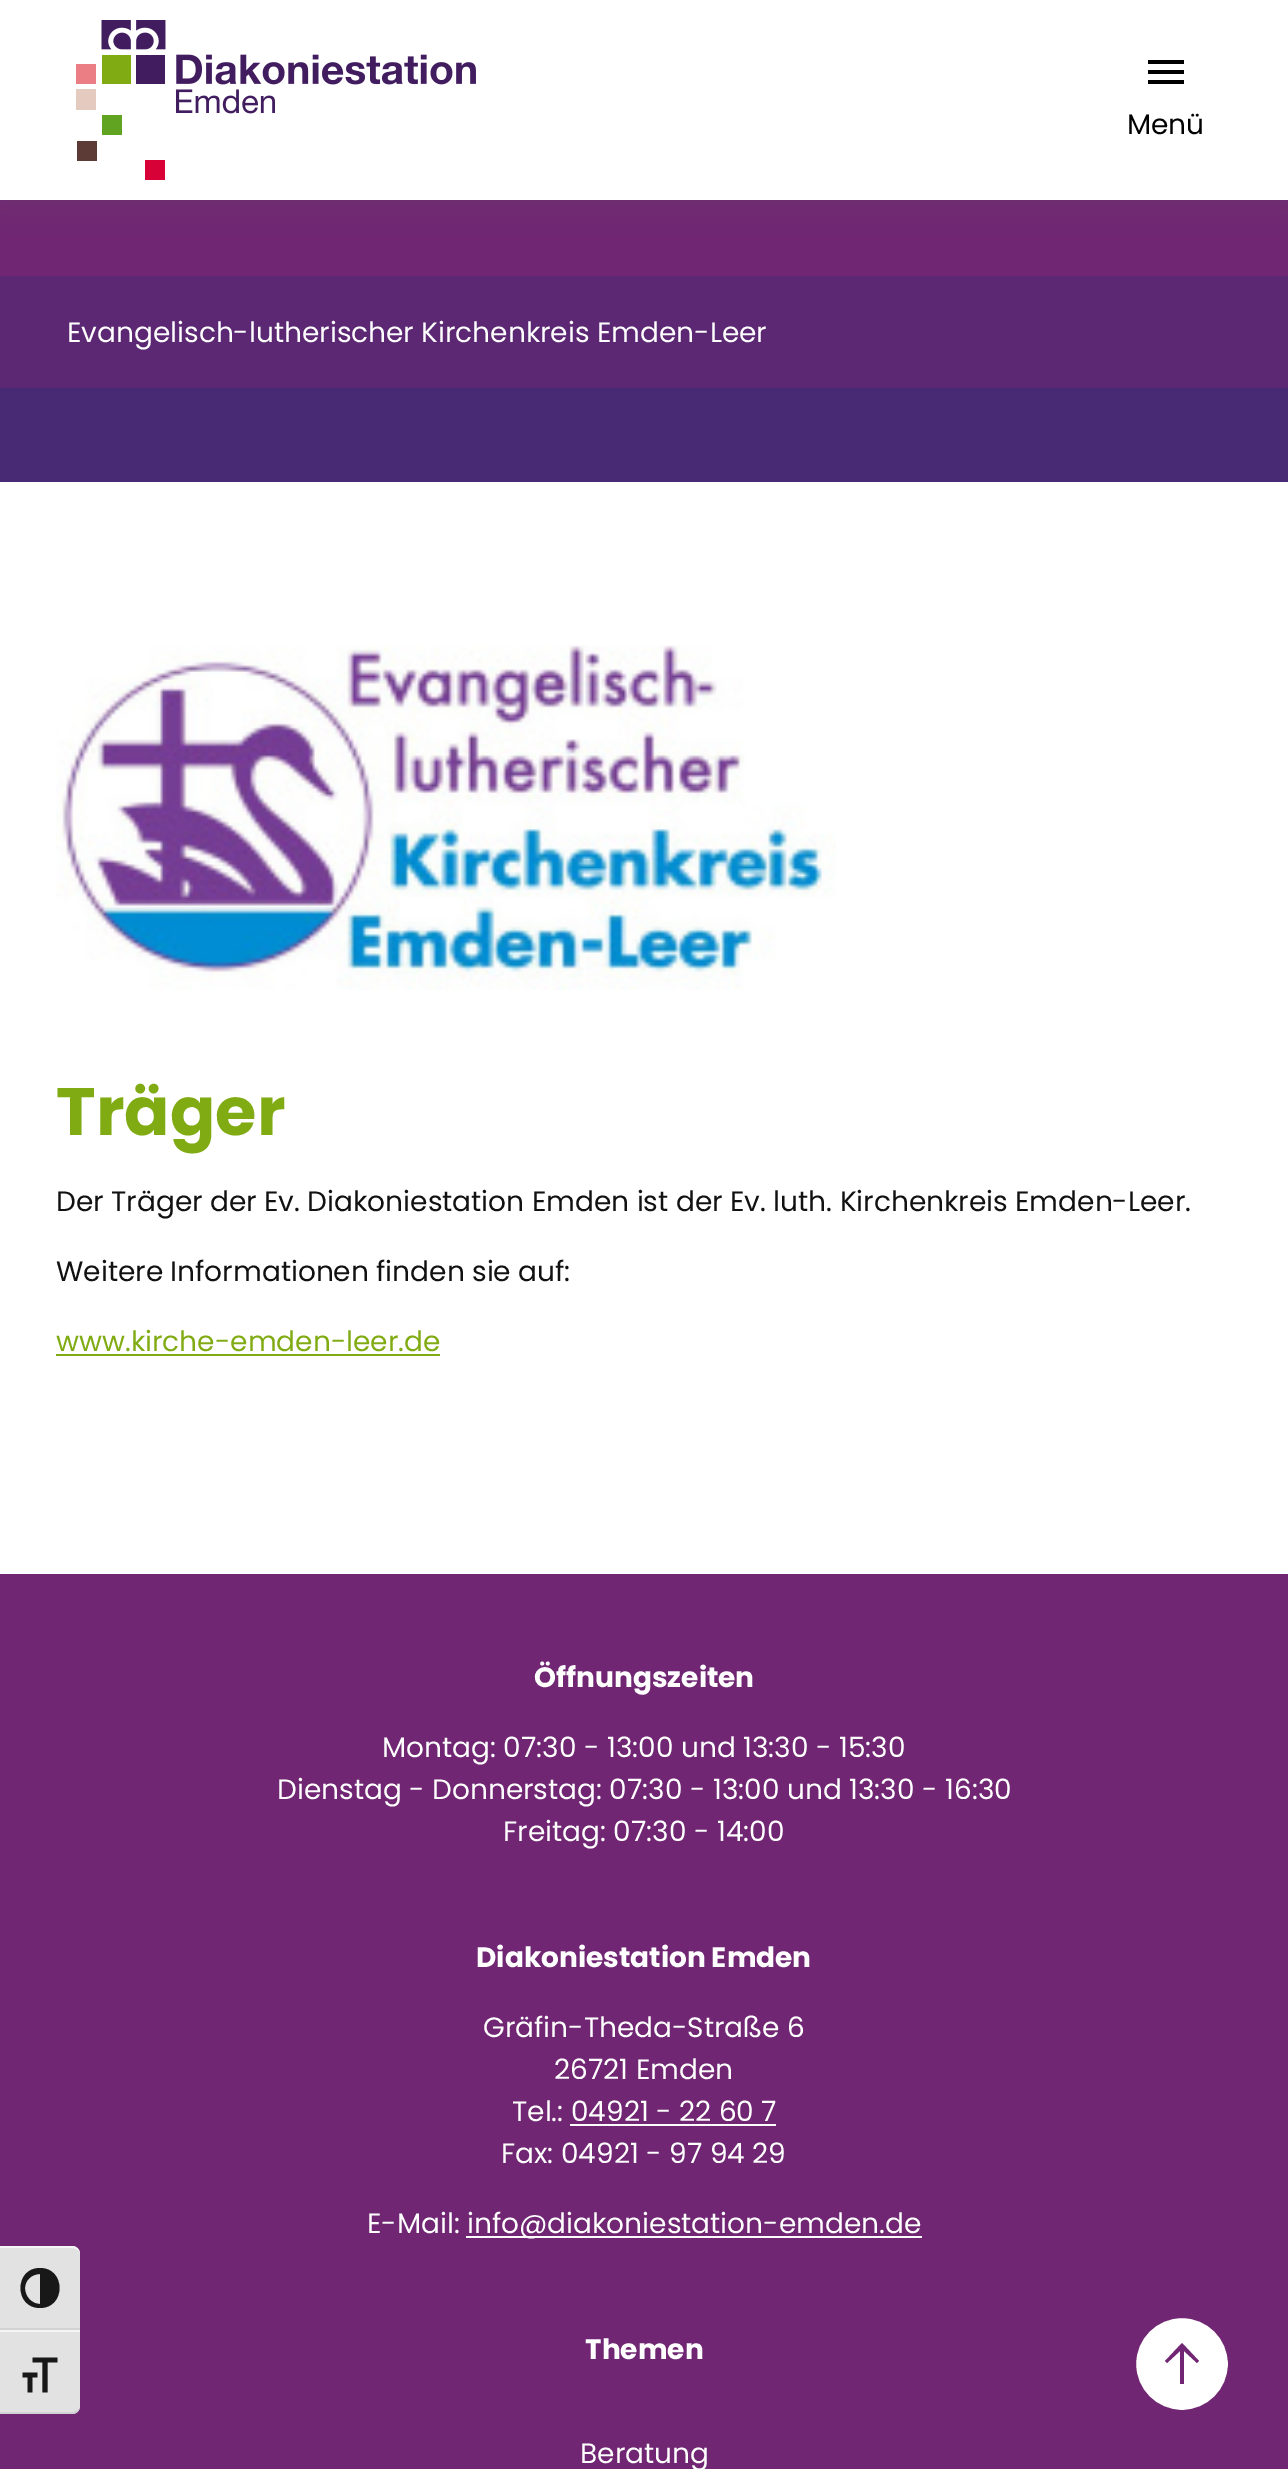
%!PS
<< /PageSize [1288 2469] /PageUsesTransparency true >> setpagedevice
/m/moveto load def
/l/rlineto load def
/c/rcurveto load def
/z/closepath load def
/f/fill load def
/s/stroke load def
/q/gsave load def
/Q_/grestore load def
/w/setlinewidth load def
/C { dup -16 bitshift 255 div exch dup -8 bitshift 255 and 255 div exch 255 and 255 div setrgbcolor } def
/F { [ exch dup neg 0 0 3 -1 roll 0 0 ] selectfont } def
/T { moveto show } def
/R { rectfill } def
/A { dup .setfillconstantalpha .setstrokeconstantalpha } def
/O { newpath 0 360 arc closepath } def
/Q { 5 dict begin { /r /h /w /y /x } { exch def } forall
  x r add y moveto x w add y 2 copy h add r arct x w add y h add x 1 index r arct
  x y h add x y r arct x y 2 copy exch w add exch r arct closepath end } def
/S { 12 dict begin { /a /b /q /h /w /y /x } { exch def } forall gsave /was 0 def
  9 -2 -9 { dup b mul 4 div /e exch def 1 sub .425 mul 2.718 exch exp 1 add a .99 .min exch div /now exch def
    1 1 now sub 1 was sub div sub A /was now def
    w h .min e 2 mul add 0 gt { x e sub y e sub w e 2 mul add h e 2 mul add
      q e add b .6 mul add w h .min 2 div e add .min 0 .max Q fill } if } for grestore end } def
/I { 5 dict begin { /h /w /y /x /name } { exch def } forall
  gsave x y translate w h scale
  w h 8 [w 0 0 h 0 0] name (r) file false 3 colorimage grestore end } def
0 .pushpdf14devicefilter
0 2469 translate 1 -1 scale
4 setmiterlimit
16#FFFFFF C
0 0 1288 2469 R
16#702673 C
0 200 1288 76 R
16#646464 C
0 0 1288 200 0 20 .25 S
16#FFFFFF C
0 0 1288 200 R
(1.rgb) 76 20 400 160 I
(2.rgb) 1148 60 36 24 I
/Poppins-Regular 28 F
16#000000 C
(Menü) 1127 134 T
16#5C2873 C
0 276 1288 112 R
16#FFFFFF C
(Evangelisch-lutherischer Kirchenkreis Emden-Leer) 67 342 T
16#482A74 C
0 388 1288 94 R
(3.rgb) 56 645 780 345 I
/Poppins-Bold 67 F
16#80AB13 C
(Träger) 56 1135 T
/Poppins-Regular 28 F
16#111111 C
(Der Träger der Ev. Diakoniestation Emden ist der Ev. luth. Kirchenkreis Emden-Leer.) 56 1211 T
(Weitere Informationen finden sie auf:) 56 1281 T
16#80AB13 C
(www.kirche-emden-leer.de) 56 1351 T
56 1354 384 2 R
16#702673 C
0 1574 1288 895 R
16#E2E2E2 C
0 2246 m 72 0 l 4.5 0 8 3.5 8 8 c 0 76 l -80 0 l z f
16#F5F5F5 C
0 2246 m 0 2 l 72 0 l 4 0 8 3 8 6 c 0 -4 -4 -8 -8 -8 c z f
16#D2D2D2 C
0 2328 80 2 R
16#181818 C
40 2268 m -26 0 -26 40 0 40 c 26 0 26 -40 0 -40 c z 25 2288 m 0 -8 7 -14 15 -14 c 0 30 l -8 0 -15 -7 -15 -16 c z f
16#E2E2E2 C
0 2330 m 80 0 l 0 76 l 0 4.5 -3.5 8 -8 8 c -72 0 l z f
16#F5F5F5 C
0 2330 80 2 R
16#D2D2D2 C
0 2412 m 0 2 l 72 0 l 4 0 8 -4 8 -8 c 0 3 -4 6 -8 6 c z f
(4.rgb) 22 2357 36 36 I
/Poppins-Bold 28 F
16#FFFFFF C
(Öffnungszeiten) 534 1687 T
/Poppins-Regular 28 F
(Montag: 07:30 - 13:00 und 13:30 - 15:30) 382 1757 T
(Dienstag - Donnerstag: 07:30 - 13:00 und 13:30 - 16:30) 277 1799 T
(Freitag: 07:30 - 14:00) 503 1841 T
/Poppins-Bold 28 F
(Diakoniestation Emden) 476 1967 T
/Poppins-Regular 28 F
(Gräfin-Theda-Straße 6) 483 2037 T
(26721 Emden) 554 2079 T
(Tel.: 04921 - 22 60 7) 512 2121 T
570 2124 206 2 R
(Fax: 04921 - 97 94 29) 501 2163 T
(E-Mail:) 367 2233 T
466 2236 456 2 R
(info@diakoniestation-emden.de) 467 2233 T
/Poppins-Bold 28 F
(Themen) 585 2359 T
/Poppins-Regular 28 F
(Beratung) 580 2463 T
1182 2364 48 O q f Q_
16#702673 C
4 w
s
1184 2351 m 0 33 l -4 0 l 0 -33 l -13 12 l -2 -2 l 17 -18 l 17 18 l -2 2 l z eofill
.poppdf14devicefilter showpage
